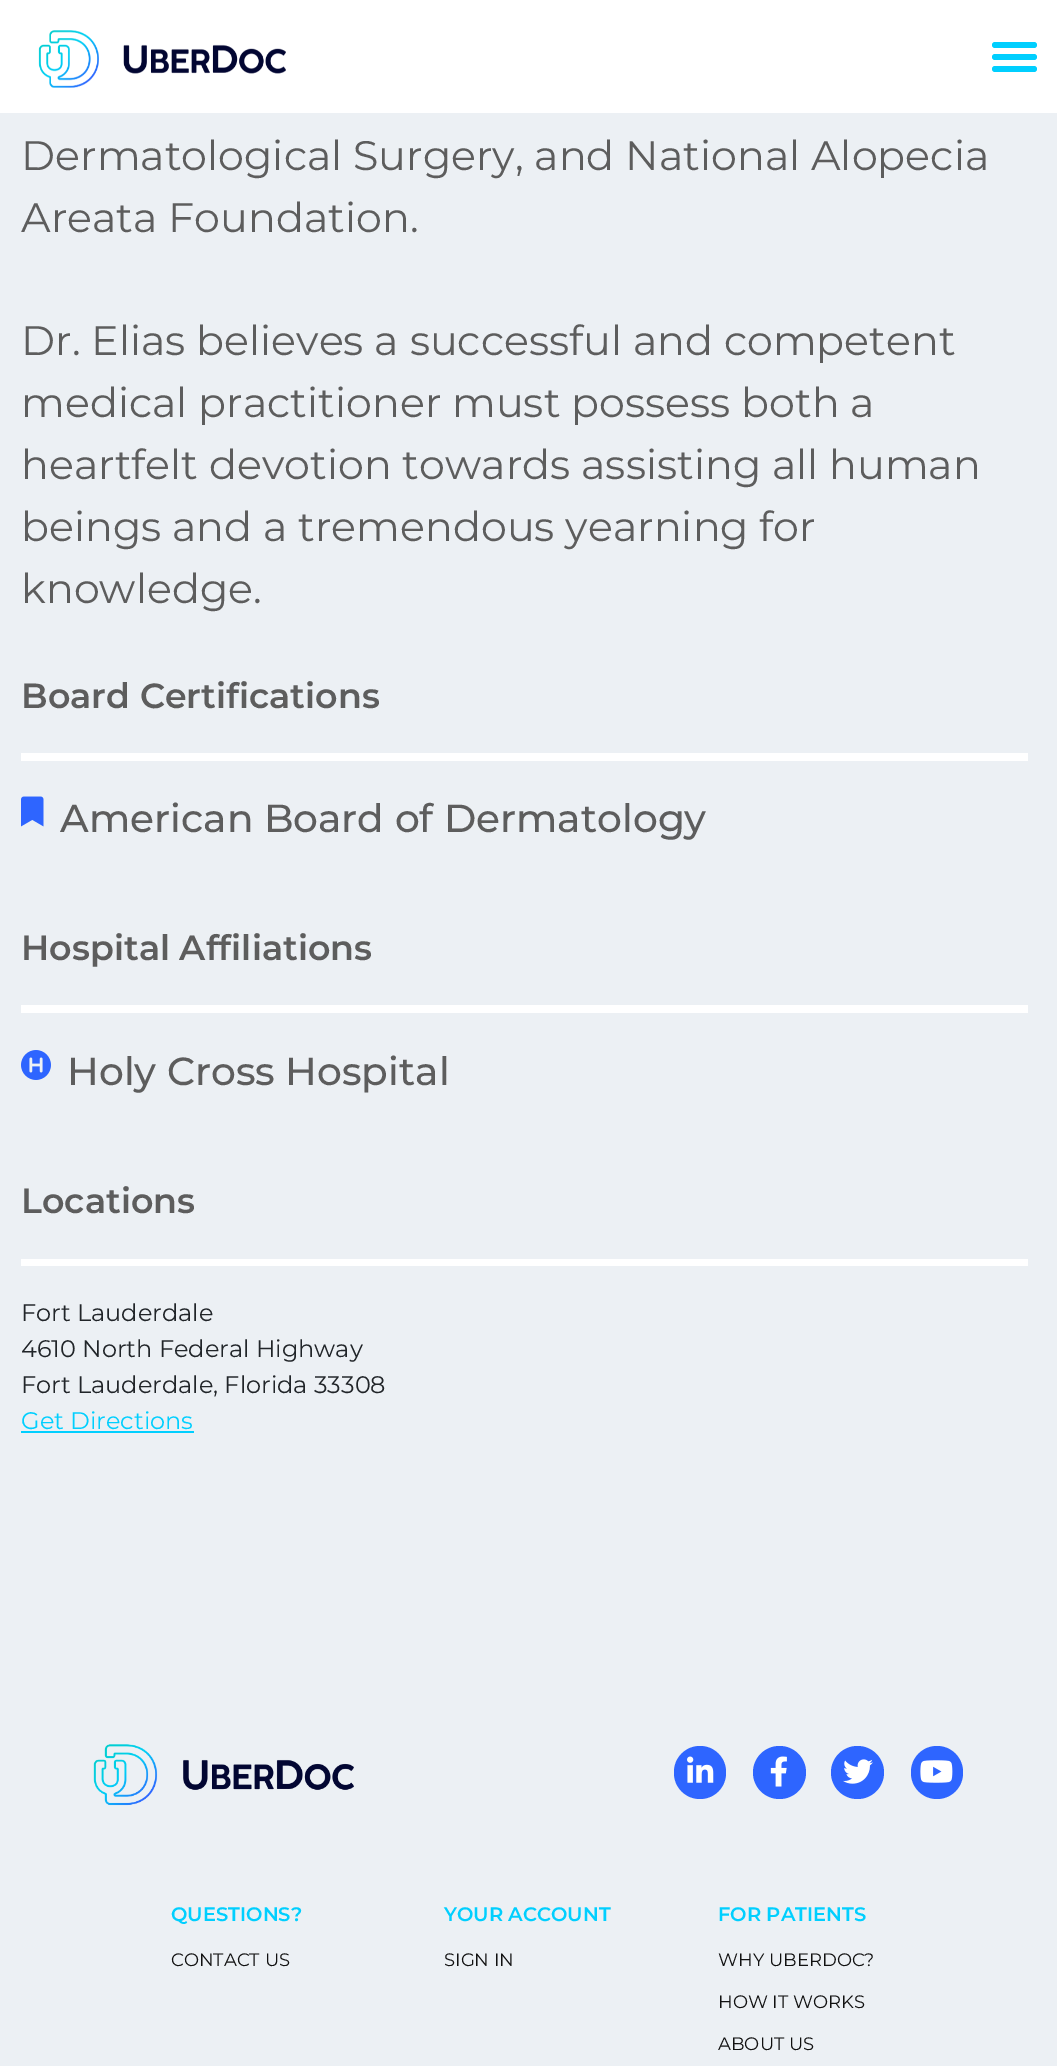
%!PS
<< /PageSize [1057 2066] >> setpagedevice
/f/fill load def
/C { dup -16 bitshift 255 div exch dup -8 bitshift 255 and 255 div exch 255 and 255 div setrgbcolor } def
/F { [ exch dup neg 0 0 3 -1 roll 0 0 ] selectfont } def
/T { moveto show } def
/R { rectfill } def
/O { newpath 0 360 arc closepath } def
/Q { 5 dict begin { /r /h /w /y /x } { exch def } forall
  x r add y moveto x w add y 2 copy h add r arct x w add y h add x 1 index r arct
  x y h add x y r arct x y 2 copy exch w add exch r arct closepath end } def
/I { 5 dict begin { /h /w /y /x /name } { exch def } forall
  gsave x y translate w h scale
  w h 8 [w 0 0 h 0 0] name (r) file false 3 colorimage grestore end } def
0 2066 translate 1 -1 scale
4 setmiterlimit
16#ECF0F4 C
0 0 1057 2066 R
16#FFFFFF C
0 0 1057 113 R
(1.rgb) 38 30 248 58 I
16#00CFFF C
992 54 45 6 3 Q f
992 42 45 6 3 Q f
992 66 45 6 3 Q f
/Montserrat-Regular 41.25 F
16#5D5D5D C
(Dermatological Surgery, and National Alopecia) 21 170 T
(Areata Foundation.) 21 232 T
(Dr. Elias believes a successful and competent) 21 355 T
(medical practitioner must possess both a) 21 417 T
(heartfelt devotion towards assisting all human) 21 479 T
(beings and a tremendous yearning for) 21 541 T
(knowledge.) 21 603 T
/Montserrat-SemiBold 34.9 F
(Board Certifications) 21 708 T
16#FFFFFF C
21 753 1007 8 R
(2.rgb) 21 796 23 31 I
/Montserrat-Medium 39.1 F
16#5D5D5D C
(American Board of Dermatology) 60 832 T
/Montserrat-SemiBold 34.9 F
(Hospital Affiliations) 21 960 T
16#FFFFFF C
21 1005 1007 8 R
(3.rgb) 21 1050 30 30 I
/Montserrat-Medium 39.1 F
16#5D5D5D C
(Holy Cross Hospital) 67 1085 T
/Montserrat-SemiBold 34.9 F
(Locations) 21 1213 T
16#FFFFFF C
21 1259 1007 7 R
/Montserrat-Regular 24 F
16#212529 C
(Fort Lauderdale) 21 1321 T
(4610 North Federal Highway) 21 1357 T
(Fort Lauderdale, Florida 33308) 21 1393 T
16#00CFFF C
(Get Directions) 21 1429 T
21 1431 173 2 R
(4.rgb) 93 1744 261 62 I
16#2E65FF C
674 1746 52 53 26 Q f
(5.rgb) 687 1756 27 27 I
779.5 1772.5 26.5 O f
(6.rgb) 770 1756 17 31 I
857.5 1772.5 26.5 O f
(7.rgb) 843 1759 30 25 I
911 1746 52 53 26 Q f
(8.rgb) 920 1760 33 23 I
/Montserrat-SemiBold 19.5 F
16#00CFFF C
(QUESTIONS?) 171 1921 T
/Montserrat-Regular 18 F
16#111111 C
(CONTACT US) 171 1966 T
/Montserrat-SemiBold 19.5 F
16#00CFFF C
(YOUR ACCOUNT) 444 1921 T
/Montserrat-Regular 18 F
16#111111 C
(SIGN IN) 444 1966 T
/Montserrat-SemiBold 19.5 F
16#00CFFF C
(FOR PATIENTS) 718 1921 T
/Montserrat-Regular 18 F
16#111111 C
(WHY UBERDOC?) 718 1966 T
(HOW IT WORKS) 718 2008 T
(ABOUT US) 718 2050 T
showpage
